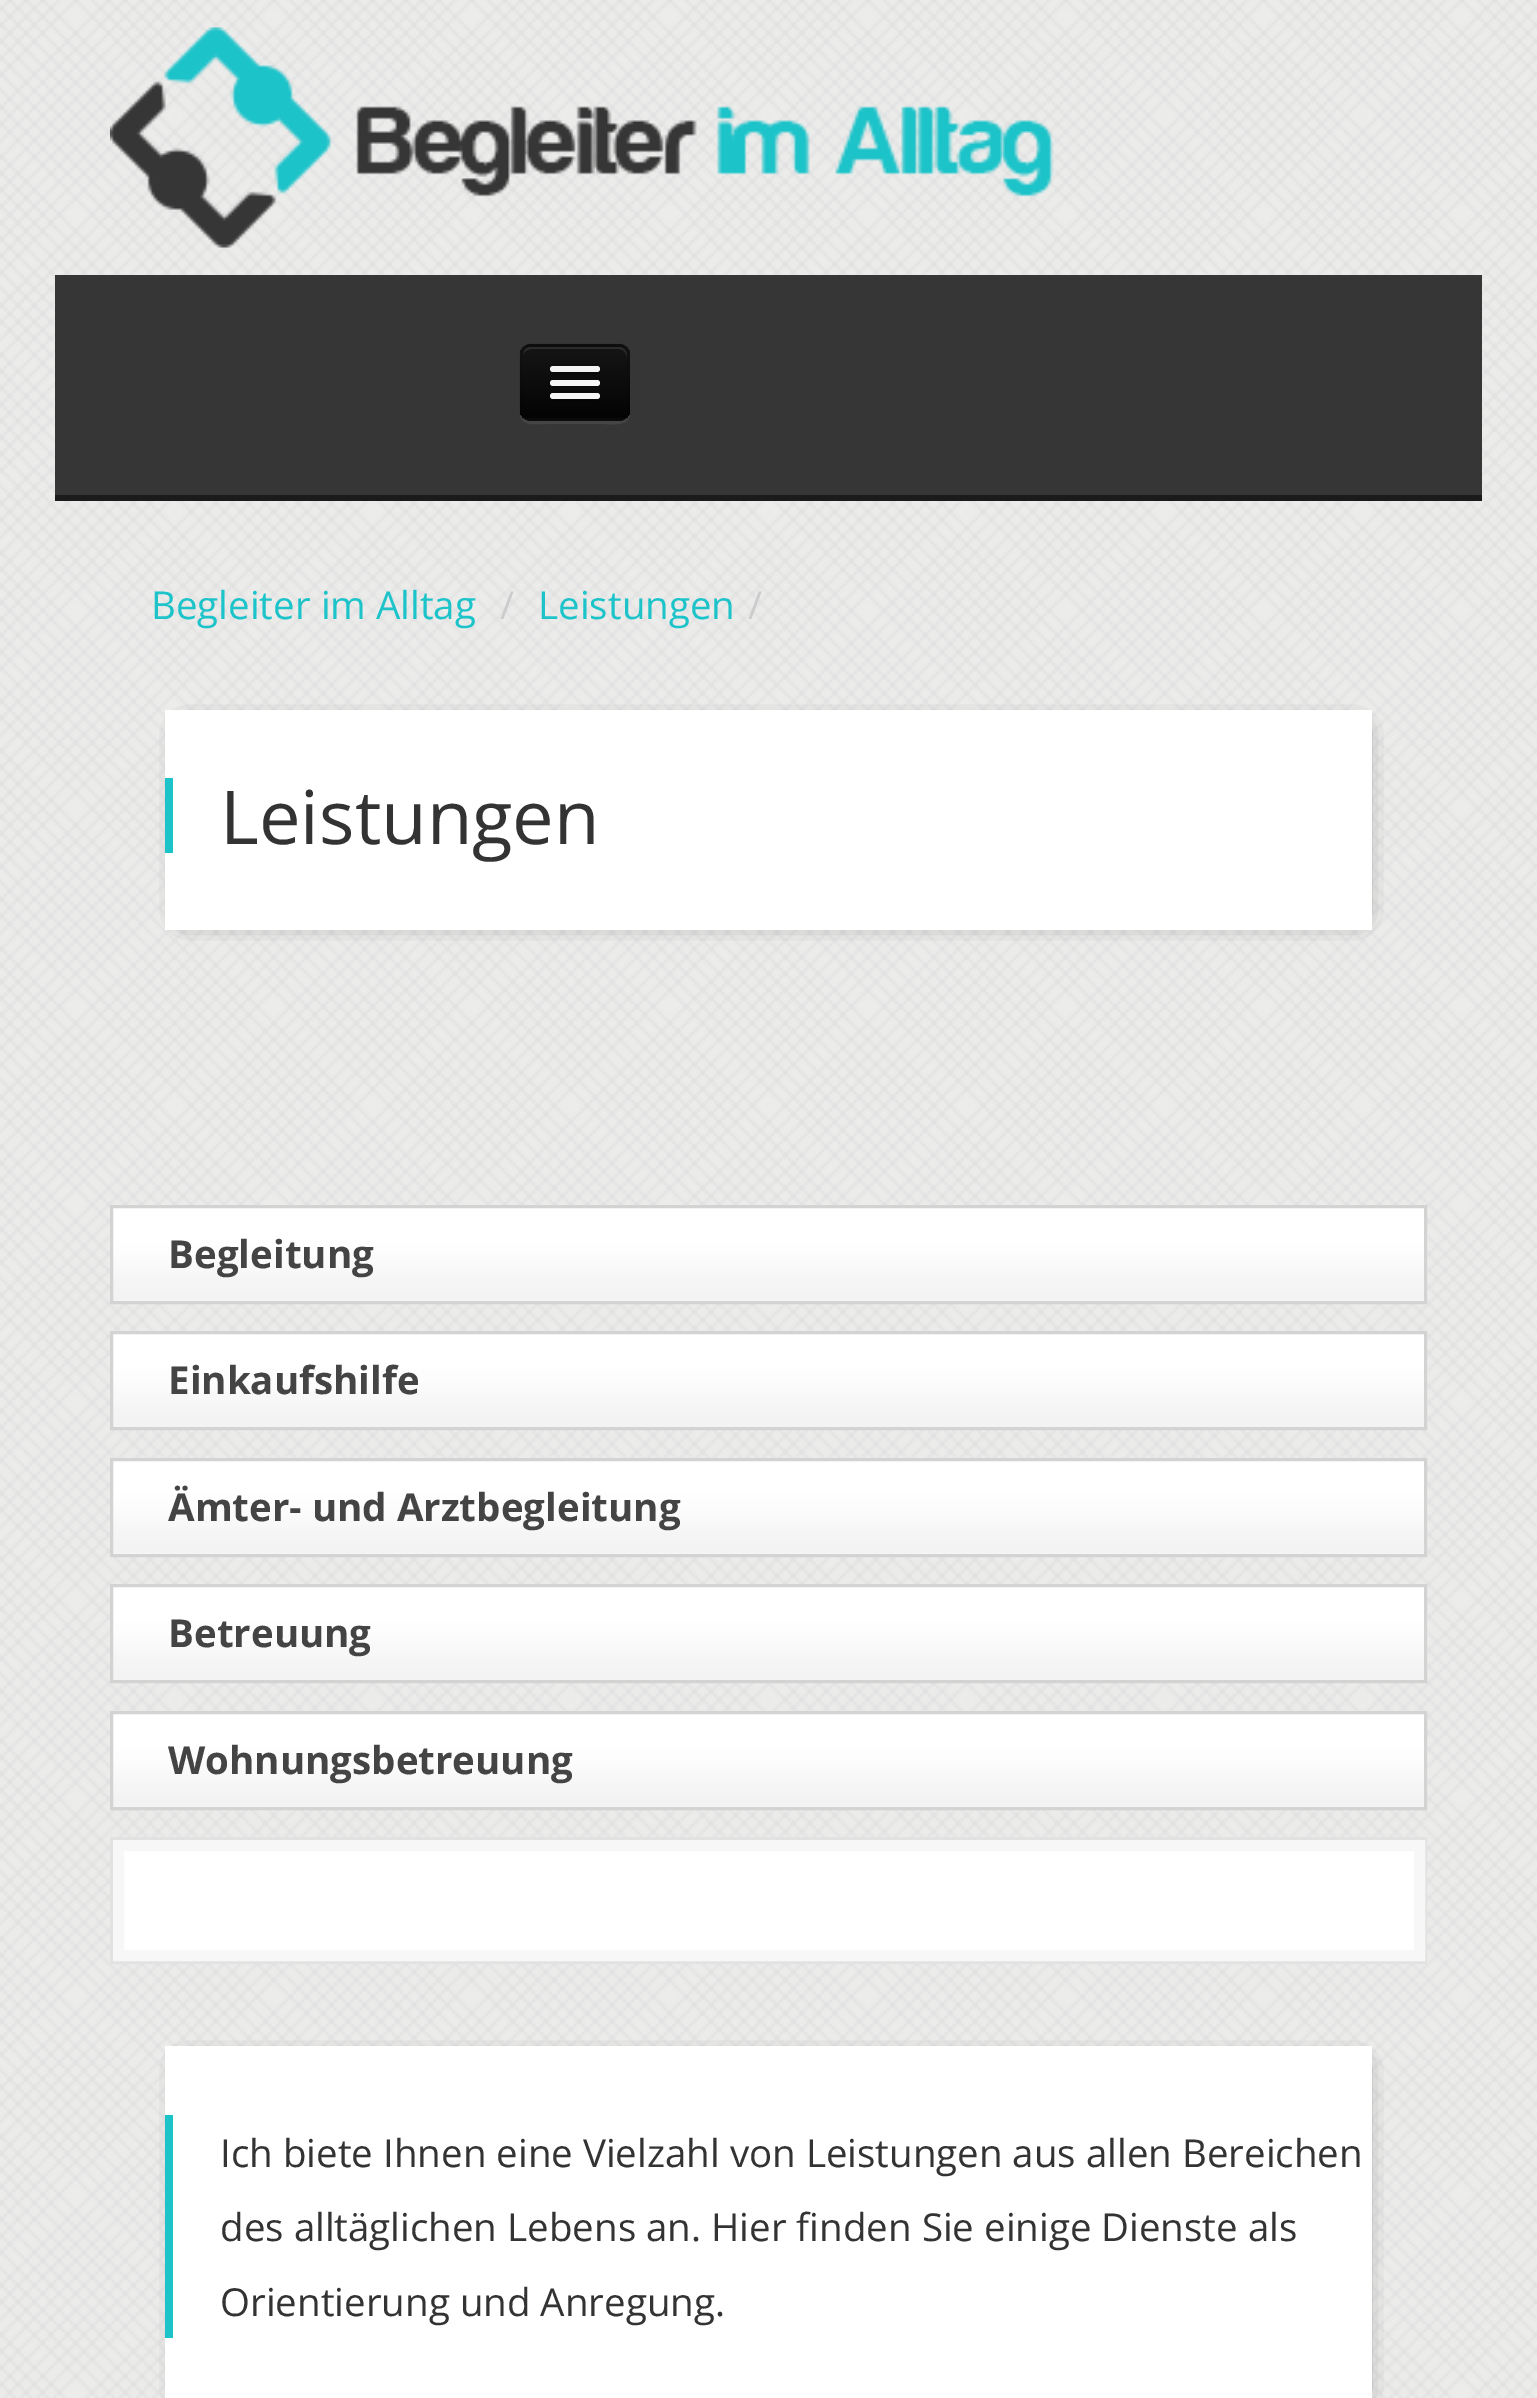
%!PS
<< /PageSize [1537 2398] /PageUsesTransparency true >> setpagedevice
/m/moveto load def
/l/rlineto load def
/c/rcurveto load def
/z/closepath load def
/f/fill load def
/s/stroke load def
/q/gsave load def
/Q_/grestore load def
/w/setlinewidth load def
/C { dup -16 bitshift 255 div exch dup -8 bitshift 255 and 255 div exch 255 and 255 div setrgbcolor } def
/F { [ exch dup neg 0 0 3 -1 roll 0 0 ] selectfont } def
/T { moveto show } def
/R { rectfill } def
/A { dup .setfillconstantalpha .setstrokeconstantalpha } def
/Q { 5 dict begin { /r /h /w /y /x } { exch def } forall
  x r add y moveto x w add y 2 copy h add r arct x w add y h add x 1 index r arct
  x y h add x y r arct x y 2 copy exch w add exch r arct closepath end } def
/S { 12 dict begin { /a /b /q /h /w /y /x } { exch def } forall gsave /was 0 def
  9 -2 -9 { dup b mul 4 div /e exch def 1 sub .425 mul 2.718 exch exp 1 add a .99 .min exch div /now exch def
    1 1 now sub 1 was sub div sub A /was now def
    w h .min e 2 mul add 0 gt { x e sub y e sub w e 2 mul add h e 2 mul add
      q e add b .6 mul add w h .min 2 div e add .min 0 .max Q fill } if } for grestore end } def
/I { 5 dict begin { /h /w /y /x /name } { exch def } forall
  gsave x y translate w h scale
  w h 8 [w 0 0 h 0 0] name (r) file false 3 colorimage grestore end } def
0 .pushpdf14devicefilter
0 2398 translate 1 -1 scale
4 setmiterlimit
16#FFFFFF C
0 0 1537 2398 R
(1.rgb) 0 0 1537 2398 I
(2.rgb) 110 27 944 221 I
16#363636 C
55 275 1427 220 R
16#1B1B1B C
55 495 1427 6 R
16#454545 C
520 412 m 0 15 15 12 26 12 c 58 0 l 8 0 23 3 26 -9 c 0 -59 l 0 54 l 0 6 -5 11 -11 11 c -88 0 l -6 0 -10 -4 -11 -9 c z f
16#0E0E0E C
520 344 110 77 11 Q f
q
520 344 110 77 11 Q clip newpath
q 520 347 m 110 0 l 0 71 l -110 0 l z clip newpath
<< /ShadingType 2 /ColorSpace /DeviceRGB /Coords [575 347 575 418] /Extend [true true] /Function << /FunctionType 2 /Domain [0 1] /C0 [.082 .082 .082] /C1 [.016 .016 .016] /N 1 >> >> shfill Q_
Q_
16#2C2C2C C
531 349 m 88 0 l 4 0 8 4 8 9 c 0 -3 l 0 -4 -4 -8 -8 -8 c -88 0 l -4 0 -7 3 -8 7 c 2 -3 5 -5 8 -5 c z f
0.25 A
16#000000 C
2.8 w
625.5 416.5 m -1.5 2 -4 3 -6.5 3 c -88 0 l -3 0 -5.5 -1 -7 -3 c s
0.1 A
524 416.5 m -2 -1.5 -3 -4 -3 -6.5 c 0 -55 l 0 -3 1 -5.5 3 -7 c 1.5 -2 4 -3 7 -3 c 88 0 l 2.5 0 5 1 6.5 3 c 2 1.5 3 4 3 7 c 0 55 l 0 2.5 -1 5 -3 6.5 c s
1 A
16#0B0B0B C
551 370 m -1 3 l 1 4 9 2 10 2 c 30 0 l 1 0 9 2 10 -2 c 0 -1 0 -2 -1 -3 c -2 1 l -45 0 l z f
16#F5F5F5 C
550 366 50 6 3 Q f
16#090909 C
550 384 m -3 5 9 4 10 4 c 38 0 l 2 0 3 -3 1 -5 c 0 1 -1 2 -2 2 c -44 0 l -1 0 -2 -1 -3 -1 c z f
16#F5F5F5 C
550 380 50 6 3 Q f
16#060606 C
550 397 m -3 6 10 5 10 5 c 30 0 l 1 0 9 2 10 -2 c -1 -3 l -1 2 l -46 0 l z f
16#F5F5F5 C
550 393 50 6 3 Q f
/OpenSans-Regular 38.5 F
16#1CC3C9 C
(Begleiter im Alltag) 151 619 T
16#CCCCCC C
(/) 500 619 T
16#1CC3C9 C
(Leistungen) 538 619 T
16#CCCCCC C
(/) 748 619 T
16#000000 C
184 729 1175 187 0 11 1 S
16#FFFFFF C
165 710 1207 220 R
16#1CC3C9 C
165 778 8 75 R
/OpenSans-Regular 74.25 F
16#333333 C
(Leistungen) 220 844 T
16#FFFFFF C
113 1208 1311 93 R
(3.rgb) 113 1232 1315 69 I
16#D3D3D3 C
3 w
111.5 1206.5 1314 96 rectstroke
/OpenSans-Bold 38.5 F
16#444444 C
(Begleitung) 168 1268 T
16#FFFFFF C
113 1334 1311 25 R
(4.rgb) 113 1359 1315 68 I
16#D3D3D3 C
111.5 1332.5 1314 96 rectstroke
16#444444 C
(Einkaufshilfe) 168 1394 T
16#FFFFFF C
113 1461 1311 93 R
(5.rgb) 113 1485 1315 69 I
16#D3D3D3 C
111.5 1459.5 1314 96 rectstroke
16#444444 C
(Ämter- und Arztbegleitung) 168 1521 T
16#FFFFFF C
113 1587 1311 25 R
(6.rgb) 113 1612 1315 68 I
16#D3D3D3 C
111.5 1585.5 1314 96 rectstroke
16#444444 C
(Betreuung) 168 1647 T
16#FFFFFF C
113 1714 1311 93 R
(7.rgb) 113 1738 1315 69 I
16#D3D3D3 C
111.5 1712.5 1314 96 rectstroke
16#444444 C
(Wohnungsbetreuung) 168 1774 T
16#FFFFFF C
124 1851 1290 99 R
16#E2E2E2 C
111.5 1838.5 1314 124 rectstroke
16#F7F7F7 C
11 w
118.5 1845.5 1301 110 rectstroke
16#000000 C
184 2065 1175 328 0 11 1 S
16#FFFFFF C
165 2046 1207 352 R
16#1CC3C9 C
165 2115 8 223 R
/OpenSans-Regular 38.5 F
16#333333 C
(Ich biete Ihnen eine Vielzahl von Leistungen aus allen Bereichen) 220 2167 T
(des alltäglichen Lebens an. Hier finden Sie einige Dienste als) 220 2241 T
(Orientierung und Anregung.) 220 2316 T
.poppdf14devicefilter showpage
